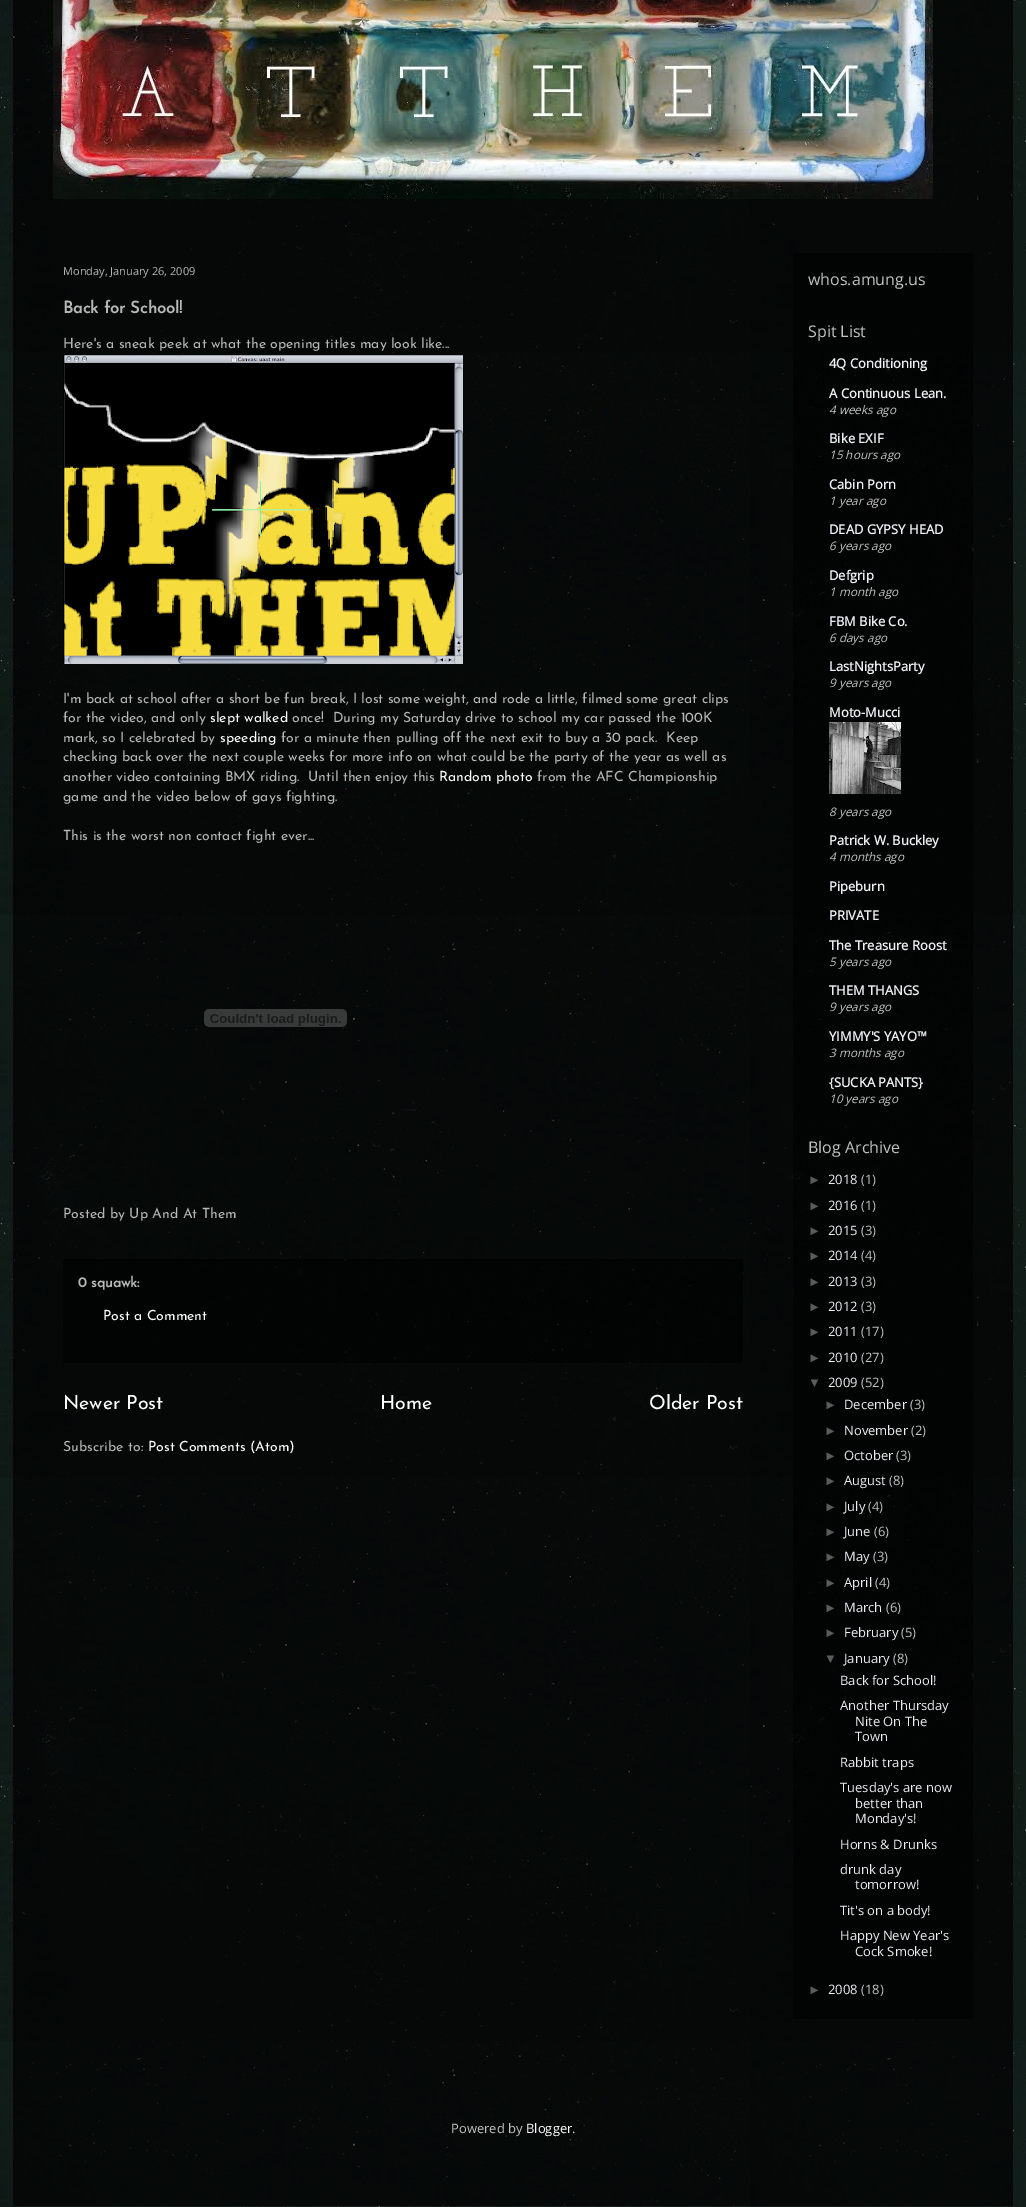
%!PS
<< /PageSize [1026 2207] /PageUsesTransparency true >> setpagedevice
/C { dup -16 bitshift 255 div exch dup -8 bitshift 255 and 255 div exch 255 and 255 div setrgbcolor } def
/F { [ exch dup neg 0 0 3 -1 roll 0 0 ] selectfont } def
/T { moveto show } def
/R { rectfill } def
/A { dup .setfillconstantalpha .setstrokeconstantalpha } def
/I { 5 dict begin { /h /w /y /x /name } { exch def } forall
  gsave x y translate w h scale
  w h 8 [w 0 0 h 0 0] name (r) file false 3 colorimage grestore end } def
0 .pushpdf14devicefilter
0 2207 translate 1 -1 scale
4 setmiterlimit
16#FFFFFF C
0 0 1026 2207 R
(1.rgb) 0 0 1026 2207 I
(2.rgb) 53 0 880 199 I
0.5 A
16#000000 C
793 253 180 1766 R
/OpenSans-Regular 11 F
1 A
16#B6B6B6 C
(Monday, January 26, 2009) 63 275 T
/JosefinSans-Bold 16.5 F
(Back for School!) 63 313 T
/JosefinSans-Thin 14 F
(Here's a sneak peek at what the opening titles may look like...) 63 348 T
(3.rgb) 63 355 400 309 I
(I'm back at school after a short be fun break, I lost some weight, and rode a little, filmed some great clips) 63 703 T
(for the video, and only) 63 722 T
16#FFFFFF C
(slept walked) 210 722 T
16#B6B6B6 C
(once!  During my Saturday drive to school my car passed the 100K) 292 722 T
(mark, so I celebrated by) 63 742 T
16#FFFFFF C
(speeding) 220 742 T
16#B6B6B6 C
(for a minute then pulling off the next exit to buy a 30 pack.  Keep) 281 742 T
(checking back over the next couple weeks for more info on what could be the party of the year as well as) 63 761 T
(another video containing BMX riding.  Until then enjoy this) 63 781 T
16#FFFFFF C
(Random photo) 439 781 T
16#B6B6B6 C
(from the AFC Championship) 537 781 T
(game and the video below of gays fighting.) 63 801 T
(This is the worst non contact fight ever...) 63 840 T
(4.rgb) 204 1009 143 18 I
(Posted by Up And At Them) 63 1218 T
0.5 A
16#000000 C
63 1259 680 104 R
/JosefinSans-Bold 14 F
1 A
16#B6B6B6 C
(0 squawk:) 78 1287 T
/JosefinSans-Thin 14 F
16#FFFFFF C
(Post a Comment) 103 1320 T
/JosefinSans-Thin 19.5 F
(Newer Post) 63 1409 T
(Home) 380 1409 T
(Older Post) 649 1409 T
/JosefinSans-Thin 14 F
16#B6B6B6 C
(Subscribe to:) 63 1451 T
16#FFFFFF C
(Post Comments \(Atom\)) 148 1451 T
/OpenSans-Regular 16 F
16#C2C2C2 C
(whos.amung.us) 808 285 T
(Spit List) 808 337 T
/OpenSans-Bold 13 F
16#EAEFF2 C
(4Q Conditioning) 829 368 T
(A Continuous Lean.) 829 398 T
/OpenSans-Italic 11.75 F
16#C2C2C2 C
(4 weeks ago) 829 414 T
/OpenSans-Bold 13 F
16#EAEFF2 C
(Bike EXIF) 829 443 T
/OpenSans-Italic 11.75 F
16#C2C2C2 C
(15 hours ago) 829 459 T
/OpenSans-Bold 13 F
16#EAEFF2 C
(Cabin Porn) 829 489 T
/OpenSans-Italic 11.75 F
16#C2C2C2 C
(1 year ago) 829 505 T
/OpenSans-Bold 13 F
16#EAEFF2 C
(DEAD GYPSY HEAD) 829 534 T
/OpenSans-Italic 11.75 F
16#C2C2C2 C
(6 years ago) 829 550 T
/OpenSans-Bold 13 F
16#EAEFF2 C
(Defgrip) 829 580 T
/OpenSans-Italic 11.75 F
16#C2C2C2 C
(1 month ago) 829 596 T
/OpenSans-Bold 13 F
16#EAEFF2 C
(FBM Bike Co.) 829 626 T
/OpenSans-Italic 11.75 F
16#C2C2C2 C
(6 days ago) 829 642 T
/OpenSans-Bold 13 F
16#EAEFF2 C
(LastNightsParty) 829 671 T
/OpenSans-Italic 11.75 F
16#C2C2C2 C
(9 years ago) 829 687 T
/OpenSans-Bold 13 F
16#EAEFF2 C
(Moto-Mucci) 829 717 T
(5.rgb) 829 722 72 72 I
/OpenSans-Italic 11.75 F
16#C2C2C2 C
(8 years ago) 829 816 T
/OpenSans-Bold 13 F
16#EAEFF2 C
(Patrick W. Buckley) 829 845 T
/OpenSans-Italic 11.75 F
16#C2C2C2 C
(4 months ago) 829 861 T
/OpenSans-Bold 13 F
16#EAEFF2 C
(Pipeburn) 829 891 T
(PRIVATE) 829 920 T
(The Treasure Roost) 829 950 T
/OpenSans-Italic 11.75 F
16#C2C2C2 C
(5 years ago) 829 966 T
/OpenSans-Bold 13 F
16#EAEFF2 C
(THEM THANGS) 829 995 T
/OpenSans-Italic 11.75 F
16#C2C2C2 C
(9 years ago) 829 1011 T
/OpenSans-Bold 13 F
16#EAEFF2 C
(YIMMY'S YAYO™) 829 1041 T
/OpenSans-Italic 11.75 F
16#C2C2C2 C
(3 months ago) 829 1057 T
/OpenSans-Bold 13 F
16#EAEFF2 C
({SUCKA PANTS}) 829 1087 T
/OpenSans-Italic 11.75 F
16#C2C2C2 C
(10 years ago) 829 1103 T
/OpenSans-Regular 16 F
(Blog Archive) 808 1153 T
/LiberationSans-Regular 13 F
16#5B5B5B C
(►) 808 1184 T
/OpenSans-Regular 13 F
16#EAEFF2 C
(2018) 828 1184 T
16#C2C2C2 C
(\(1\)) 861 1184 T
/LiberationSans-Regular 13 F
16#5B5B5B C
(►) 808 1210 T
/OpenSans-Regular 13 F
16#EAEFF2 C
(2016) 828 1210 T
16#C2C2C2 C
(\(1\)) 861 1210 T
/LiberationSans-Regular 13 F
16#5B5B5B C
(►) 808 1235 T
/OpenSans-Regular 13 F
16#EAEFF2 C
(2015) 828 1235 T
16#C2C2C2 C
(\(3\)) 861 1235 T
/LiberationSans-Regular 13 F
16#5B5B5B C
(►) 808 1260 T
/OpenSans-Regular 13 F
16#EAEFF2 C
(2014) 828 1260 T
16#C2C2C2 C
(\(4\)) 861 1260 T
/LiberationSans-Regular 13 F
16#5B5B5B C
(►) 808 1286 T
/OpenSans-Regular 13 F
16#EAEFF2 C
(2013) 828 1286 T
16#C2C2C2 C
(\(3\)) 861 1286 T
/LiberationSans-Regular 13 F
16#5B5B5B C
(►) 808 1311 T
/OpenSans-Regular 13 F
16#EAEFF2 C
(2012) 828 1311 T
16#C2C2C2 C
(\(3\)) 861 1311 T
/LiberationSans-Regular 13 F
16#5B5B5B C
(►) 808 1336 T
/OpenSans-Regular 13 F
16#EAEFF2 C
(2011) 828 1336 T
16#C2C2C2 C
(\(17\)) 861 1336 T
/LiberationSans-Regular 13 F
16#5B5B5B C
(►) 808 1362 T
/OpenSans-Regular 13 F
16#EAEFF2 C
(2010) 828 1362 T
16#C2C2C2 C
(\(27\)) 861 1362 T
/LiberationSans-Regular 13 F
16#5B5B5B C
(▼) 808 1387 T
/OpenSans-Regular 13 F
16#EAEFF2 C
(2009) 828 1387 T
16#C2C2C2 C
(\(52\)) 861 1387 T
/LiberationSans-Regular 13 F
16#5B5B5B C
(►) 824 1409 T
/OpenSans-Regular 13 F
16#EAEFF2 C
(December) 844 1409 T
16#C2C2C2 C
(\(3\)) 910 1409 T
/LiberationSans-Regular 13 F
16#5B5B5B C
(►) 824 1435 T
/OpenSans-Regular 13 F
16#EAEFF2 C
(November) 844 1435 T
16#C2C2C2 C
(\(2\)) 911 1435 T
/LiberationSans-Regular 13 F
16#5B5B5B C
(►) 824 1460 T
/OpenSans-Regular 13 F
16#EAEFF2 C
(October) 844 1460 T
16#C2C2C2 C
(\(3\)) 896 1460 T
/LiberationSans-Regular 13 F
16#5B5B5B C
(►) 824 1485 T
/OpenSans-Regular 13 F
16#EAEFF2 C
(August) 844 1485 T
16#C2C2C2 C
(\(8\)) 889 1485 T
/LiberationSans-Regular 13 F
16#5B5B5B C
(►) 824 1511 T
/OpenSans-Regular 13 F
16#EAEFF2 C
(July) 844 1511 T
16#C2C2C2 C
(\(4\)) 868 1511 T
/LiberationSans-Regular 13 F
16#5B5B5B C
(►) 824 1536 T
/OpenSans-Regular 13 F
16#EAEFF2 C
(June) 844 1536 T
16#C2C2C2 C
(\(6\)) 874 1536 T
/LiberationSans-Regular 13 F
16#5B5B5B C
(►) 824 1561 T
/OpenSans-Regular 13 F
16#EAEFF2 C
(May) 844 1561 T
16#C2C2C2 C
(\(3\)) 873 1561 T
/LiberationSans-Regular 13 F
16#5B5B5B C
(►) 824 1587 T
/OpenSans-Regular 13 F
16#EAEFF2 C
(April) 844 1587 T
16#C2C2C2 C
(\(4\)) 875 1587 T
/LiberationSans-Regular 13 F
16#5B5B5B C
(►) 824 1612 T
/OpenSans-Regular 13 F
16#EAEFF2 C
(March) 844 1612 T
16#C2C2C2 C
(\(6\)) 886 1612 T
/LiberationSans-Regular 13 F
16#5B5B5B C
(►) 824 1637 T
/OpenSans-Regular 13 F
16#EAEFF2 C
(February) 844 1637 T
16#C2C2C2 C
(\(5\)) 901 1637 T
/LiberationSans-Regular 13 F
16#5B5B5B C
(▼) 824 1663 T
/OpenSans-Regular 13 F
16#EAEFF2 C
(January) 844 1663 T
16#C2C2C2 C
(\(8\)) 893 1663 T
16#EAEFF2 C
(Back for School!) 840 1685 T
(Another Thursday) 840 1710 T
(Nite On The) 855 1726 T
(Town) 855 1741 T
(Rabbit traps) 840 1767 T
(Tuesday's are now) 840 1792 T
(better than) 855 1808 T
(Monday's!) 855 1823 T
(Horns & Drunks) 840 1849 T
(drunk day) 840 1874 T
(tomorrow!) 855 1889 T
(Tit's on a body!) 840 1915 T
(Happy New Year's) 840 1940 T
(Cock Smoke!) 855 1956 T
/LiberationSans-Regular 13 F
16#5B5B5B C
(►) 808 1994 T
/OpenSans-Regular 13 F
16#EAEFF2 C
(2008) 828 1994 T
16#C2C2C2 C
(\(18\)) 861 1994 T
(Powered by) 451 2133 T
16#FFFFFF C
(Blogger) 526 2133 T
16#C2C2C2 C
(.) 572 2133 T
.poppdf14devicefilter showpage
